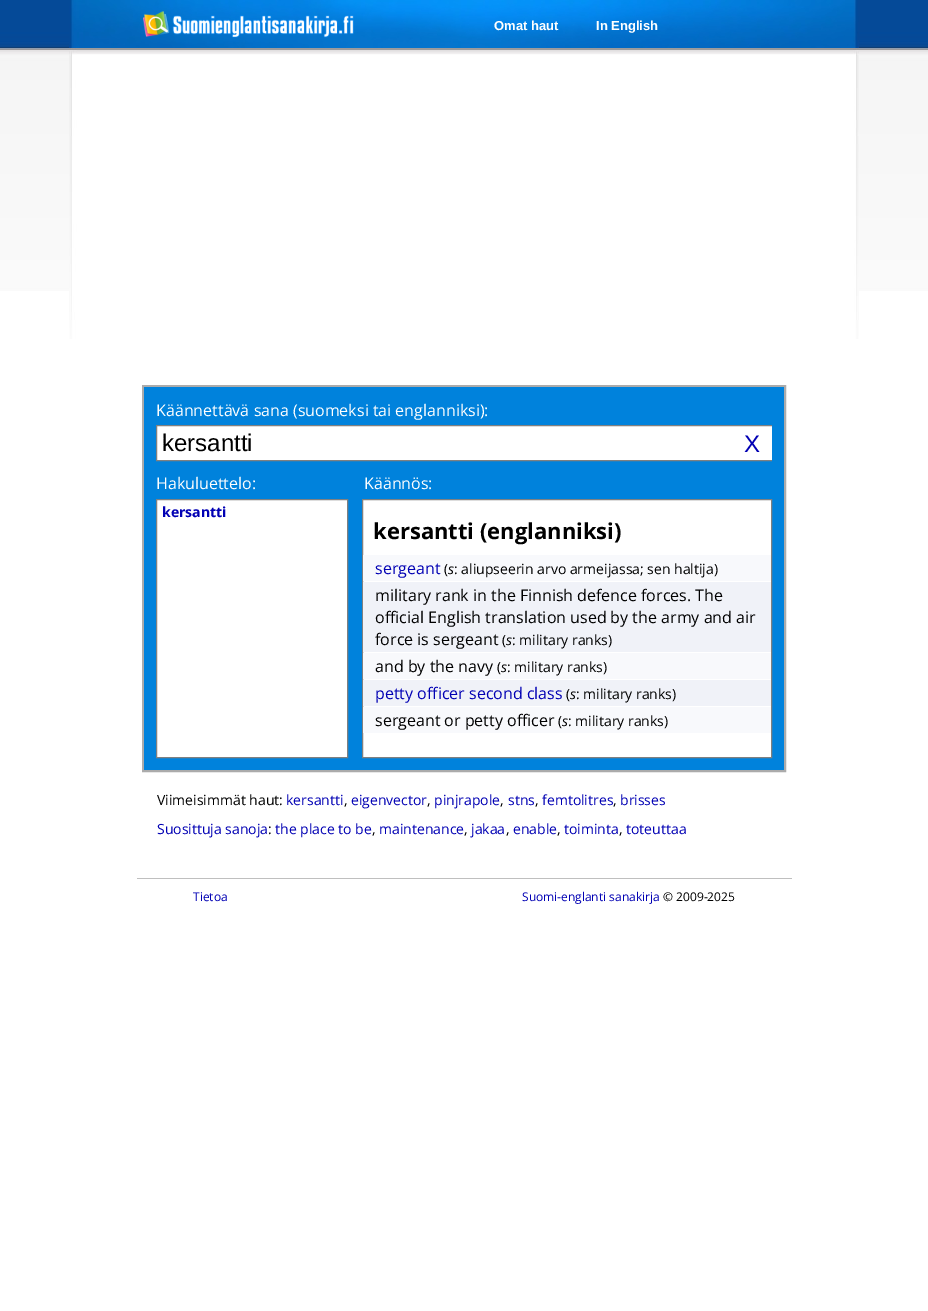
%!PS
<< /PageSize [928 1311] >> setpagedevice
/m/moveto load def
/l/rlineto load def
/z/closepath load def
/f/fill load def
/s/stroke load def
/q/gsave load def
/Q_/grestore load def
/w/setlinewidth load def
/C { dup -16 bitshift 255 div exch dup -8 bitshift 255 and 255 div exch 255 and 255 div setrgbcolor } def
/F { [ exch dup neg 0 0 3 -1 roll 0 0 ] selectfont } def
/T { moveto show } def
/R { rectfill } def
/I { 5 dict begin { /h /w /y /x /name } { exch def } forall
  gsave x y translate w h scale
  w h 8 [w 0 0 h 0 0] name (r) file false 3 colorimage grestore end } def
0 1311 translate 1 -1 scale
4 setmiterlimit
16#FFFFFF C
0 0 928 1311 R
(1.rgb) 0 0 928 291 I
(2.rgb) 69 0 790 48 I
(3.rgb) 143 11 211 27 I
/LiberationSans-Bold 13 F
(Omat haut) 494 30 T
(In English) 596 30 T
(4.rgb) 69 48 790 291 I
16#ABABAB C
2 w
143 386 642 385 rectstroke
16#0082DC C
144 387 640 383 R
/OpenSans-Regular 16 F
16#FFFFFF C
(Käännettävä sana \(suomeksi tai englanniksi\):) 156 416 T
157 426 615 34 R
q
156 399 616 359 rectclip
16#808080 C
1 w
156.5 425.5 619 35 rectstroke
Q_
/LiberationSans-Regular 24 F
16#000000 C
(kersantti) 162 451 T
16#0100B4 C
(X) 744 452 T
/OpenSans-Regular 16 F
16#FFFFFF C
(Hakuluettelo:) 156 489 T
(Käännös:) 364 489 T
156.5 499.5 m 191 0 l 0 258 l -191 0 l z q f Q_
16#808080 C
1 w
s
/OpenSans-Bold 14 F
16#0100B4 C
(kersantti) 162 517 T
16#FFFFFF C
362.5 499.5 m 409 0 l 0 258 l -409 0 l z q f Q_
16#808080 C
s
/OpenSans-Bold 22 F
16#000000 C
(kersantti \(englanniksi\)) 373 539 T
16#F8F9FC C
363 555 408 26 R
/OpenSans-Regular 16 F
16#0100B4 C
(sergeant) 375 574 T
/OpenSans-Regular 14 F
16#000000 C
(\() 444 574 T
/OpenSans-Italic 14 F
(s) 448 574 T
/OpenSans-Regular 14 F
(: aliupseerin arvo armeijassa; sen haltija\)) 454 574 T
16#F0F2F8 C
363 582 408 70 R
/OpenSans-Regular 16 F
16#000000 C
(military rank in the Finnish defence forces. The) 375 601 T
(official English translation used by the army and air) 375 623 T
(force is sergeant) 375 645 T
/OpenSans-Regular 14 F
(\() 502 645 T
/OpenSans-Italic 14 F
(s) 506 645 T
/OpenSans-Regular 14 F
(: military ranks\)) 512 645 T
16#F8F9FC C
363 653 408 26 R
/OpenSans-Regular 16 F
16#000000 C
(and by the navy) 375 672 T
/OpenSans-Regular 14 F
(\() 497 672 T
/OpenSans-Italic 14 F
(s) 501 672 T
/OpenSans-Regular 14 F
(: military ranks\)) 507 672 T
16#F0F2F8 C
363 680 408 26 R
/OpenSans-Regular 16 F
16#0100B4 C
(petty officer second class) 375 699 T
/OpenSans-Regular 14 F
16#000000 C
(\() 566 699 T
/OpenSans-Italic 14 F
(s) 570 699 T
/OpenSans-Regular 14 F
(: military ranks\)) 576 699 T
16#F8F9FC C
363 707 408 26 R
/OpenSans-Regular 16 F
16#000000 C
(sergeant or petty officer) 375 726 T
/OpenSans-Regular 14 F
(\() 558 726 T
/OpenSans-Italic 14 F
(s) 562 726 T
/OpenSans-Regular 14 F
(: military ranks\)) 568 726 T
(Viimeisimmät haut:) 157 805 T
16#0100B4 C
(kersantti) 286 805 T
16#000000 C
(,) 344 805 T
16#0100B4 C
(eigenvector) 351 805 T
16#000000 C
(,) 427 805 T
16#0100B4 C
(pinjrapole) 434 805 T
16#000000 C
(,) 500 805 T
16#0100B4 C
(stns) 508 805 T
16#000000 C
(,) 535 805 T
16#0100B4 C
(femtolitres) 542 805 T
16#000000 C
(,) 613 805 T
16#0100B4 C
(brisses) 620 805 T
(Suosittuja sanoja) 157 834 T
16#000000 C
(:) 268 834 T
16#0100B4 C
(the place to be) 275 834 T
16#000000 C
(,) 372 834 T
16#0100B4 C
(maintenance) 379 834 T
16#000000 C
(,) 464 834 T
16#0100B4 C
(jakaa) 471 834 T
16#000000 C
(,) 506 834 T
16#0100B4 C
(enable) 513 834 T
16#000000 C
(,) 557 834 T
16#0100B4 C
(toiminta) 564 834 T
16#000000 C
(,) 619 834 T
16#0100B4 C
(toteuttaa) 626 834 T
16#BFBFBF C
137 878 655 1 R
/OpenSans-Regular 12 F
16#0100B4 C
(Tietoa) 193 901 T
(Suomi-englanti sanakirja) 522 901 T
16#000000 C
(© 2009-2025) 663 901 T
showpage
